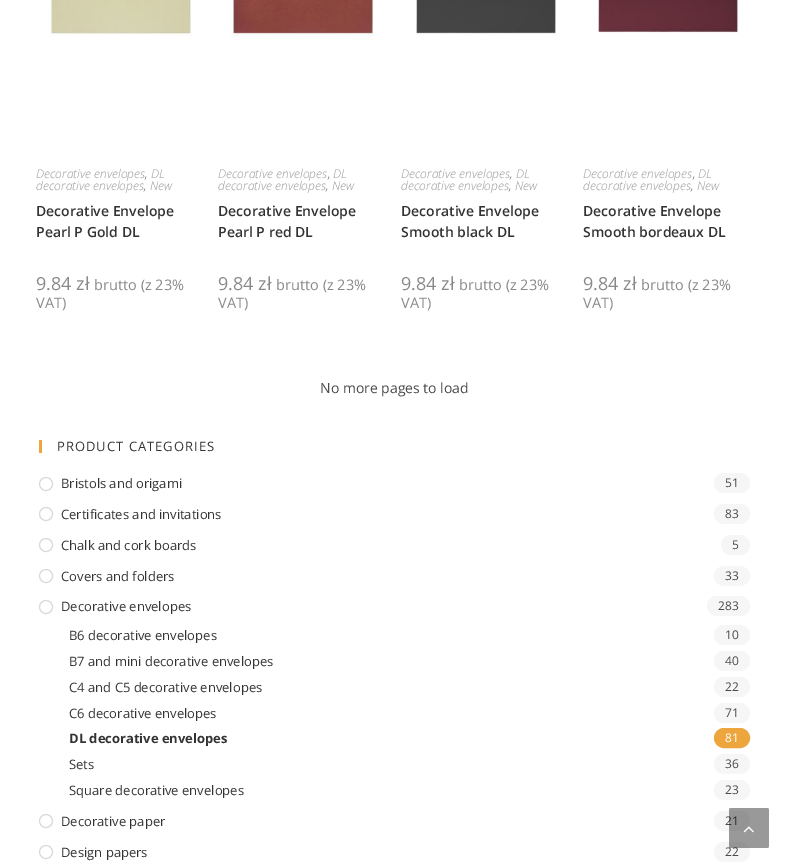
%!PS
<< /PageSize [789 868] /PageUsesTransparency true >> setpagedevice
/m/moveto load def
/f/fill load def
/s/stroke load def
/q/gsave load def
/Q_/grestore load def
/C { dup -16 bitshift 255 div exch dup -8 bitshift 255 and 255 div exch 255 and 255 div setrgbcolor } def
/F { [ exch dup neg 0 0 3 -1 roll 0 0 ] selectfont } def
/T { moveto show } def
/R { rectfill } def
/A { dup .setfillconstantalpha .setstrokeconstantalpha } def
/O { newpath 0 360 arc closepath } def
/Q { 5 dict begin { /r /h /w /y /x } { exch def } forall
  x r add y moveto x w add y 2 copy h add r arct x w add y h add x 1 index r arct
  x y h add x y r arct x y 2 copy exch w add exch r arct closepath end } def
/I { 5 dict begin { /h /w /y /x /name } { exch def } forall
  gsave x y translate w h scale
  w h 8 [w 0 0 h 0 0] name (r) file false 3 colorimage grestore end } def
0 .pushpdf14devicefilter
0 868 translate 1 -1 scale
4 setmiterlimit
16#FFFFFF C
0 0 789 868 R
(1.rgb) 50 0 142 36 I
/OpenSans-LightItalic 12 F
16#999999 C
(Decorative envelopes) 36 178 T
16#4A4A4A C
(,) 145 178 T
16#999999 C
(DL) 151 178 T
(decorative envelopes) 36 190 T
16#4A4A4A C
(,) 144 190 T
16#999999 C
(New) 150 190 T
/OpenSans-SemiBold 14 F
16#333333 C
(Decorative Envelope) 36 216 T
(Pearl P Gold DL) 36 237 T
/OpenSans-Regular 18 F
16#898989 C
(9.84 zł) 36 290 T
/OpenSans-Regular 14.5 F
(brutto \(z 23%) 94 290 T
(VAT\)) 36 308 T
(2.rgb) 229 0 145 40 I
/OpenSans-LightItalic 12 F
16#999999 C
(Decorative envelopes) 218 178 T
(DL) 333 178 T
16#4A4A4A C
(,) 328 178 T
16#999999 C
(decorative envelopes) 218 190 T
(New) 332 190 T
16#4A4A4A C
(,) 326 190 T
/OpenSans-SemiBold 14 F
16#333333 C
(Decorative Envelope) 218 216 T
(Pearl P red DL) 218 237 T
/OpenSans-Regular 18 F
16#898989 C
(9.84 zł) 218 290 T
/OpenSans-Regular 14.5 F
(brutto \(z 23%) 276 290 T
(VAT\)) 218 308 T
(3.rgb) 416 0 140 36 I
/OpenSans-LightItalic 12 F
16#999999 C
(Decorative envelopes) 401 178 T
16#4A4A4A C
(,) 510 178 T
16#999999 C
(DL) 516 178 T
(decorative envelopes) 401 190 T
16#4A4A4A C
(,) 509 190 T
16#999999 C
(New) 515 190 T
/OpenSans-SemiBold 14 F
16#333333 C
(Decorative Envelope) 401 216 T
(Smooth black DL) 401 237 T
/OpenSans-Regular 18 F
16#898989 C
(9.84 zł) 401 290 T
/OpenSans-Regular 14.5 F
(brutto \(z 23%) 459 290 T
(VAT\)) 401 308 T
(4.rgb) 598 0 141 33 I
/OpenSans-LightItalic 12 F
16#999999 C
(Decorative envelopes) 583 178 T
(DL) 698 178 T
16#4A4A4A C
(,) 693 178 T
16#999999 C
(decorative envelopes) 583 190 T
(New) 697 190 T
16#4A4A4A C
(,) 691 190 T
/OpenSans-SemiBold 14 F
16#333333 C
(Decorative Envelope) 583 216 T
(Smooth bordeaux DL) 583 237 T
/OpenSans-Regular 18 F
16#898989 C
(9.84 zł) 583 290 T
/OpenSans-Regular 14.5 F
(brutto \(z 23%) 641 290 T
(VAT\)) 583 308 T
/OpenSans-Regular 14 F
16#4A4A4A C
(No more pages to load) 320 393 T
16#EDA63D C
39 440 3 13 R
/OpenSans-Regular 13 F
16#333333 C
57 451 m 1 0 (PRODUCT CATEGORIES) ashow
16#D9D9D9 C
46 484 6.5 O s
16#333333 C
(Bristols and origami) 61 488 T
16#F6F6F6 C
714 473 36 20 10 Q f
/OpenSans-Regular 12 F
16#4A4A4A C
(51) 725 487 T
16#D9D9D9 C
46 514 6.5 O s
/OpenSans-Regular 13 F
16#333333 C
(Certificates and invitations) 61 519 T
16#F6F6F6 C
714 504 36 20 10 Q f
/OpenSans-Regular 12 F
16#4A4A4A C
(83) 725 518 T
16#D9D9D9 C
46 545 6.5 O s
/OpenSans-Regular 13 F
16#333333 C
(Chalk and cork boards) 61 550 T
16#F6F6F6 C
721 535 29 20 10 Q f
/OpenSans-Regular 12 F
16#4A4A4A C
(5) 732 549 T
16#D9D9D9 C
46 576 6.5 O s
/OpenSans-Regular 13 F
16#333333 C
(Covers and folders) 61 581 T
16#F6F6F6 C
714 566 36 20 10 Q f
/OpenSans-Regular 12 F
16#4A4A4A C
(33) 725 580 T
16#D9D9D9 C
46 607 6.5 O s
/OpenSans-Regular 13 F
16#333333 C
(Decorative envelopes) 61 611 T
16#F6F6F6 C
707 596 43 20 10 Q f
/OpenSans-Regular 12 F
16#4A4A4A C
(283) 718 610 T
/OpenSans-Regular 13 F
16#333333 C
(B6 decorative envelopes) 69 640 T
16#F6F6F6 C
714 625 36 20 10 Q f
/OpenSans-Regular 12 F
16#4A4A4A C
(10) 725 639 T
/OpenSans-Regular 13 F
16#333333 C
(B7 and mini decorative envelopes) 69 666 T
16#F6F6F6 C
714 651 36 20 10 Q f
/OpenSans-Regular 12 F
16#4A4A4A C
(40) 725 665 T
/OpenSans-Regular 13 F
16#333333 C
(C4 and C5 decorative envelopes) 69 692 T
16#F6F6F6 C
714 677 36 20 10 Q f
/OpenSans-Regular 12 F
16#4A4A4A C
(22) 725 691 T
/OpenSans-Regular 13 F
16#333333 C
(C6 decorative envelopes) 69 718 T
16#F6F6F6 C
714 703 36 20 10 Q f
/OpenSans-Regular 12 F
16#4A4A4A C
(71) 725 717 T
/OpenSans-Bold 13 F
16#333333 C
(DL decorative envelopes) 69 743 T
16#EDA63D C
714.5 728.5 35 19 9.5 Q q f Q_
s
/OpenSans-Regular 12 F
16#FFFFFF C
(81) 725 742 T
/OpenSans-Regular 13 F
16#333333 C
(Sets) 69 769 T
16#F6F6F6 C
714 754 36 20 10 Q f
/OpenSans-Regular 12 F
16#4A4A4A C
(36) 725 768 T
/OpenSans-Regular 13 F
16#333333 C
(Square decorative envelopes) 69 795 T
16#F6F6F6 C
714 780 36 20 10 Q f
/OpenSans-Regular 12 F
16#4A4A4A C
(23) 725 794 T
16#D9D9D9 C
46 821 6.5 O s
/OpenSans-Regular 13 F
16#333333 C
(Decorative paper) 61 826 T
16#F6F6F6 C
714 811 36 20 10 Q f
/OpenSans-Regular 12 F
16#4A4A4A C
(21) 725 825 T
16#D9D9D9 C
46 852 6.5 O s
/OpenSans-Regular 13 F
16#333333 C
(Design papers) 61 857 T
16#F6F6F6 C
714 842 36 20 10 Q f
/OpenSans-Regular 12 F
16#4A4A4A C
(22) 725 856 T
0.4 A
16#000000 C
729 808 40 40 2 Q f
1 A
(5.rgb) 743 826 11 7 I
.poppdf14devicefilter showpage
